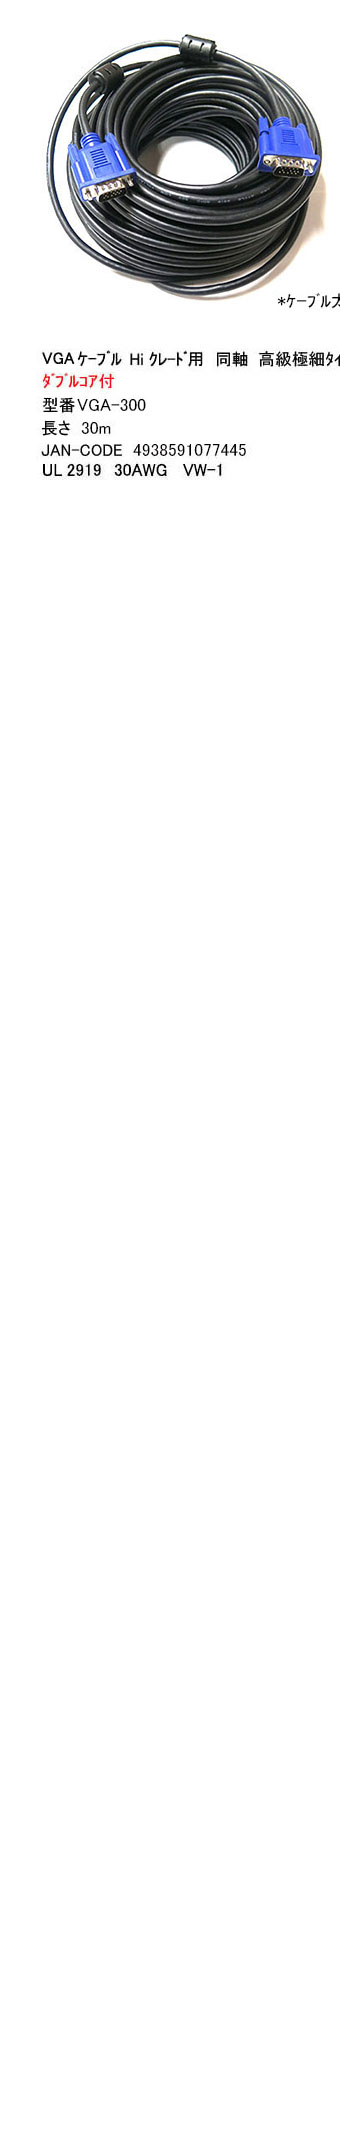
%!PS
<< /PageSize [340 2129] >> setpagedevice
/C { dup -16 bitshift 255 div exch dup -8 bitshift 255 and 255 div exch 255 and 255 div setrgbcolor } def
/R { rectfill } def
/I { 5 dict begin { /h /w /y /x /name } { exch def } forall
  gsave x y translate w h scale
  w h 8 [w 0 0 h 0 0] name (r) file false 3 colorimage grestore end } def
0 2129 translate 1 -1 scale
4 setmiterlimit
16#FFFFFF C
0 0 340 2129 R
(1.rgb) 36 32 304 448 I
showpage
